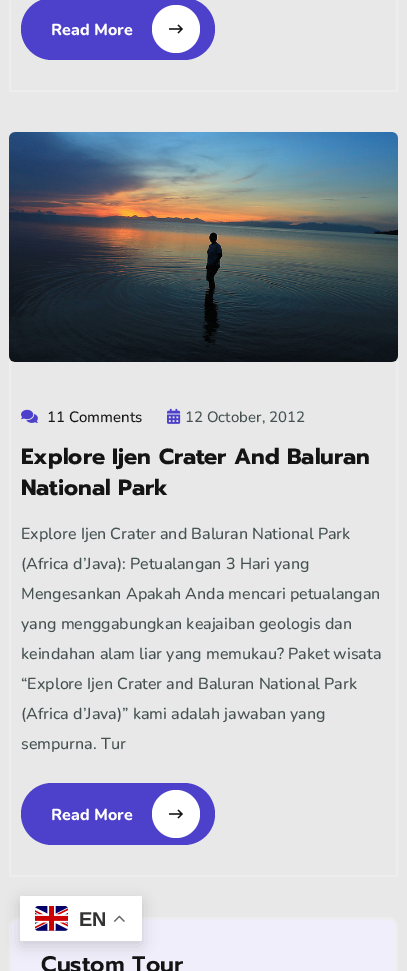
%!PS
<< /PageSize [407 971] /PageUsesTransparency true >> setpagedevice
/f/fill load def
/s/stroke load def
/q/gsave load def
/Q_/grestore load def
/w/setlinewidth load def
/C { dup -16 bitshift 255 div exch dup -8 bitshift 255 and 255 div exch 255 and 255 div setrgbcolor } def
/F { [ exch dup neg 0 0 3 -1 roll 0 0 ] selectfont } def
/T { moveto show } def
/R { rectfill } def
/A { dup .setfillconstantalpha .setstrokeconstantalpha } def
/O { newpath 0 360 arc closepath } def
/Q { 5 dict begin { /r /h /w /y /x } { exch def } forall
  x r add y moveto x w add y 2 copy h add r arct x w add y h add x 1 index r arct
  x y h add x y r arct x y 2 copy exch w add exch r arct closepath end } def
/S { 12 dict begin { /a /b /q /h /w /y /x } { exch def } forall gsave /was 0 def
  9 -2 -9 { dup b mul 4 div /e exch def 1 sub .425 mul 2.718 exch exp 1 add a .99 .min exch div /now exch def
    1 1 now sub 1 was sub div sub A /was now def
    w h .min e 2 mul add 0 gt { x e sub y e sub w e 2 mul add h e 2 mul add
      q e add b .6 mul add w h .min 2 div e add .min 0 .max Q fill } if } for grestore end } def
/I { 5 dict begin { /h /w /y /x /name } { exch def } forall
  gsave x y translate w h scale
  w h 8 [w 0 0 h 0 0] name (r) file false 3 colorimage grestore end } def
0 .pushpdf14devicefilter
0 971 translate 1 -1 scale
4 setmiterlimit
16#E8E8E8 C
0 0 407 971 R
16#EDEDED C
2 w
10 -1 387 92 rectstroke
16#4D40CA C
21 -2 194 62 31 Q f
/Nunito-ExtraBold 16 F
16#FFFFFF C
(Read More) 51 35 T
176 29 24 O f
(1.rgb) 169 24 14 10 I
16#EDEDED C
10 361 387 515 rectstroke
(2.rgb) 9 132 389 230 I
(3.rgb) 21 409 17 14 I
/Nunito-Medium 15 F
16#151415 C
(11 Comments) 47 422 T
(4.rgb) 167 408 14 16 I
16#455151 C
(12 October, 2012) 185 422 T
/Prompt-Bold 22 F
16#151415 C
(Explore Ijen Crater And Baluran) 21 464 T
(National Park) 21 495 T
/Nunito-Medium 16 F
16#455151 C
(Explore Ijen Crater and Baluran National Park) 21 539 T
(\(Africa d’Java\): Petualangan 3 Hari yang) 21 569 T
(Mengesankan Apakah Anda mencari petualangan) 21 599 T
(yang menggabungkan keajaiban geologis dan) 21 629 T
(keindahan alam liar yang memukau? Paket wisata) 21 659 T
(“Explore Ijen Crater and Baluran National Park) 21 689 T
(\(Africa d’Java\)” kami adalah jawaban yang) 21 719 T
(sempurna. Tur) 21 749 T
16#4D40CA C
21 783 194 62 31 Q f
/Nunito-ExtraBold 16 F
16#FFFFFF C
(Read More) 51 820 T
176 814 24 O f
(1.rgb) 169 809 14 10 I
16#EFEEFA C
10 918 387 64 9 Q q f Q_
16#EDEDED C
s
/Prompt-SemiBold 22.5 F
16#151415 C
(Custom Tour) 41 972 T
16#000000 C
20 901 122 45 2 7.5 .15 S
16#FFFFFF C
20 896 122 45 2 Q f
(5.rgb) 35 906 33 25 I
/LiberationSans-Bold 20 F
16#333333 C
(EN) 79 926 T
(6.rgb) 114 915 11 7 I
.poppdf14devicefilter showpage
